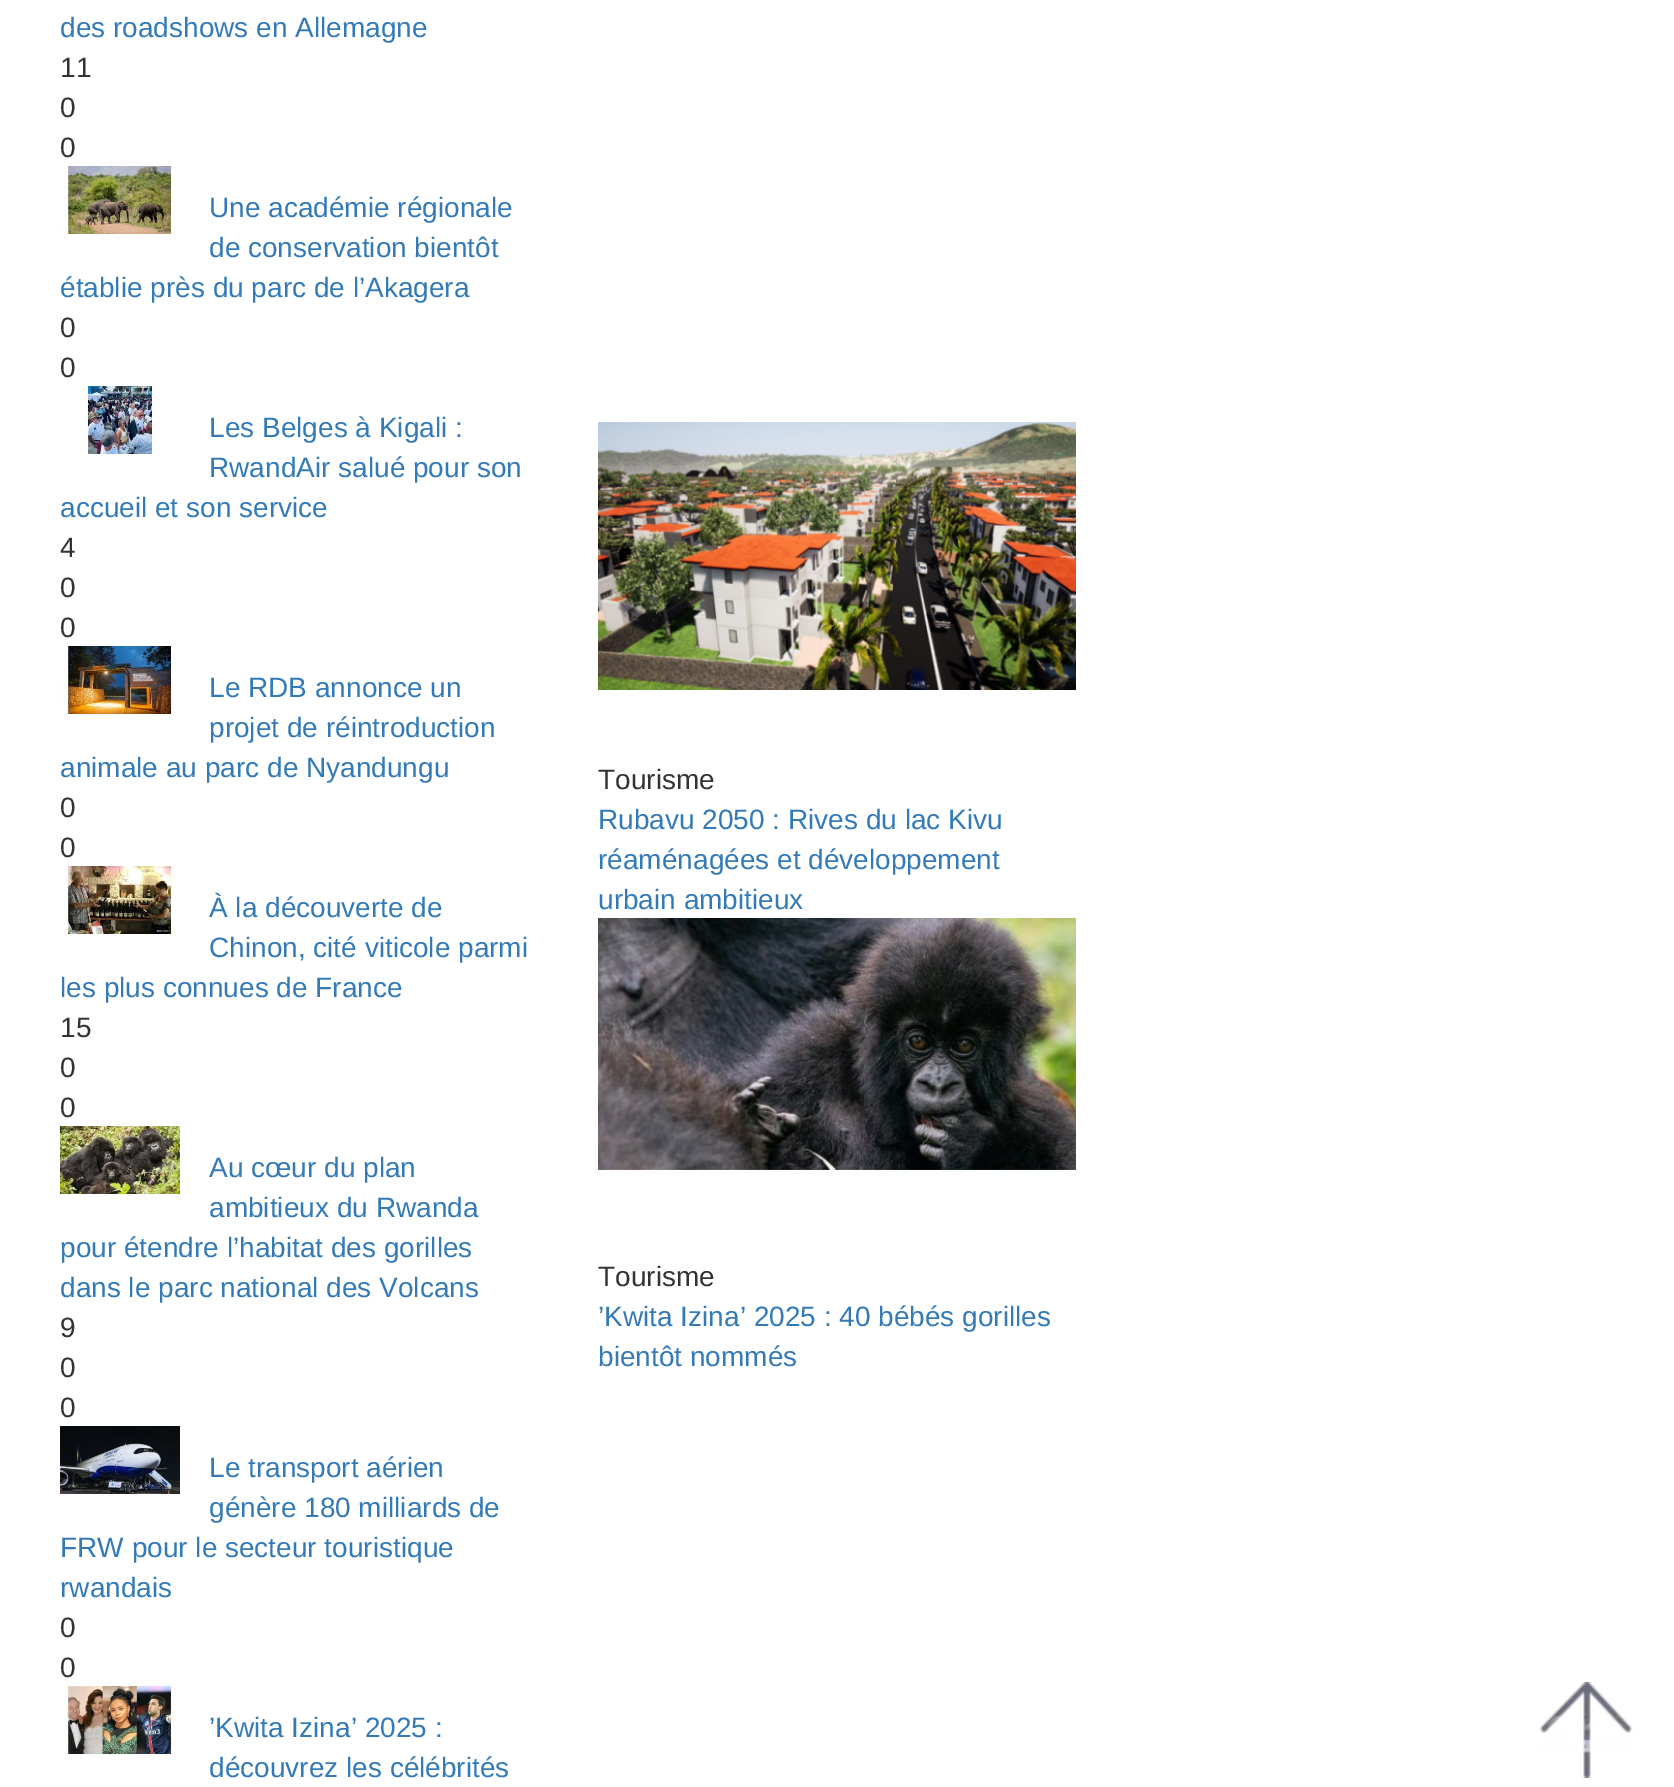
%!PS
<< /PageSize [1674 1787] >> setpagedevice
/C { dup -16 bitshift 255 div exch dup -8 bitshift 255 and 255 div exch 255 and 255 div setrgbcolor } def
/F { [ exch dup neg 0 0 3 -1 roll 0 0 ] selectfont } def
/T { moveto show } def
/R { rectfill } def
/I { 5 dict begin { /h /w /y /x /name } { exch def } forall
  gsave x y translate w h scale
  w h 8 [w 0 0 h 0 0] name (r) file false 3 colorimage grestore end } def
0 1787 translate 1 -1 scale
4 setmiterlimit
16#FFFFFF C
0 0 1674 1787 R
/LiberationSans-Regular 28 F
16#337AB7 C
(des roadshows en Allemagne) 60 37 T
16#333333 C
(11) 60 77 T
(0) 60 117 T
(0) 60 157 T
(1.rgb) 60 166 115 68 I
16#337AB7 C
(Une académie régionale) 209 217 T
(de conservation bientôt) 209 257 T
(établie près du parc de l’Akagera) 60 297 T
16#333333 C
(0) 60 337 T
(0) 60 377 T
(2.rgb) 86 386 71 68 I
16#337AB7 C
(Les Belges à Kigali :) 209 437 T
(RwandAir salué pour son) 209 477 T
(accueil et son service) 60 517 T
16#333333 C
(4) 60 557 T
(0) 60 597 T
(0) 60 637 T
(3.rgb) 60 646 115 68 I
16#337AB7 C
(Le RDB annonce un) 209 697 T
(projet de réintroduction) 209 737 T
(animale au parc de Nyandungu) 60 777 T
16#333333 C
(0) 60 817 T
(0) 60 857 T
(4.rgb) 65 866 110 68 I
16#337AB7 C
(À la découverte de) 209 917 T
(Chinon, cité viticole parmi) 209 957 T
(les plus connues de France) 60 997 T
16#333333 C
(15) 60 1037 T
(0) 60 1077 T
(0) 60 1117 T
(5.rgb) 60 1126 120 68 I
16#337AB7 C
(Au cœur du plan) 209 1177 T
(ambitieux du Rwanda) 209 1217 T
(pour étendre l’habitat des gorilles) 60 1257 T
(dans le parc national des Volcans) 60 1297 T
16#333333 C
(9) 60 1337 T
(0) 60 1377 T
(0) 60 1417 T
(6.rgb) 60 1426 120 68 I
16#337AB7 C
(Le transport aérien) 209 1477 T
(génère 180 milliards de) 209 1517 T
(FRW pour le secteur touristique) 60 1557 T
(rwandais) 60 1597 T
16#333333 C
(0) 60 1637 T
(0) 60 1677 T
(7.rgb) 65 1686 110 68 I
16#337AB7 C
(’Kwita Izina’ 2025 :) 209 1737 T
(découvrez les célébrités) 209 1777 T
(8.rgb) 598 422 478 268 I
16#333333 C
(Tourisme) 598 789 T
16#337AB7 C
(Rubavu 2050 : Rives du lac Kivu) 598 829 T
(réaménagées et développement) 598 869 T
(urbain ambitieux) 598 909 T
(9.rgb) 598 918 478 257 I
16#333333 C
(Tourisme) 598 1286 T
16#337AB7 C
(’Kwita Izina’ 2025 : 40 bébés gorilles) 598 1326 T
(bientôt nommés) 598 1366 T
(10.rgb) 1539 1682 94 96 I
showpage
